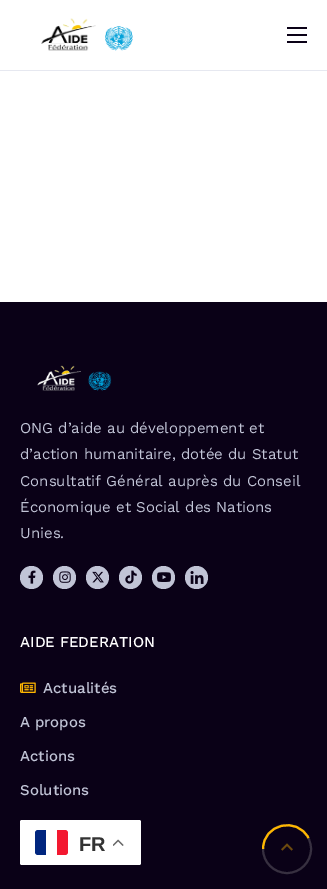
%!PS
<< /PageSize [327 889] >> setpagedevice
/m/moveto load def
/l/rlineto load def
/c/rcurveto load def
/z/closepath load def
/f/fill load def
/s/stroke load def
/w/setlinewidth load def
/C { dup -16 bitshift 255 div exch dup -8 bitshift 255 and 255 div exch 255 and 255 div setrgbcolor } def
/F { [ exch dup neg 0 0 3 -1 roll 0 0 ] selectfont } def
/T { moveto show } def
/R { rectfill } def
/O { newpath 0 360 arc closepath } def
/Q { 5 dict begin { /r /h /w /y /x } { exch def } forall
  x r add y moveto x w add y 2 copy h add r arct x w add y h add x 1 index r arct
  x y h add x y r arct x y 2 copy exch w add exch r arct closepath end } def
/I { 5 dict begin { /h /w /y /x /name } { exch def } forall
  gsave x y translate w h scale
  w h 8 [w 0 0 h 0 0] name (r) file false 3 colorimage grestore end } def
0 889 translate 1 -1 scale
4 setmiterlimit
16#FFFFFF C
0 0 327 889 R
16#E6E8F0 C
0 70 327 1 R
(1.rgb) 41 18 92 33 I
16#0A0117 C
287 27 20 2 R
287 34 20 2 R
287 41 20 2 R
0 302 327 587 R
(2.rgb) 37 365 75 26 I
/WorkSans-Regular 15 F
16#C1C4D6 C
(ONG d’aide au développement et) 20 433 T
(d’action humanitaire, dotée du Statut) 20 459 T
(Consultatif Général auprès du Conseil) 20 486 T
(Économique et Social des Nations) 20 512 T
(Unies.) 20 538 T
31.5 577.5 11.5 O f
(3.rgb) 28 570 8 14 I
64.5 577.5 11.5 O f
(4.rgb) 59 571 12 12 I
97.5 577.5 11.5 O f
(5.rgb) 92 571 12 12 I
130.5 577.5 11.5 O f
(6.rgb) 125 570 12 14 I
163.5 577.5 11.5 O f
(7.rgb) 157 572 14 10 I
196.5 577.5 11.5 O f
(8.rgb) 190 571 14 13 I
/WorkSans-Medium 15 F
16#FFFFFF C
(AIDE FEDERATION) 20 647 T
(9.rgb) 20 682 16 11 I
16#C1C4D6 C
(Actualités) 43 693 T
(A propos) 20 727 T
(Actions) 20 761 T
(Solutions) 20 795 T
16#FFFFFF C
20 820 121 45 2 Q f
16#00267F C
38 830 m 8 0 l 0 25 l -8 0 l -1.5 0 -3 -1.5 -3 -3 c 0 -19 l 0 -1.5 1.5 -3 3 -3 c z f
16#F31830 C
57 830 m 8 0 l 1.5 0 3 1.5 3 3 c 0 19 l 0 1.5 -1.5 3 -3 3 c -8 0 l z f
/LiberationSans-Bold 20 F
16#333333 C
(FR) 79 851 T
(10.rgb) 113 839 11 7 I
16#373040 C
2 w
287 849 24 O s
(11.rgb) 281 843 12 8 I
16#FFB700 C
263 849 m 0 -25 34 -33 45.5 -11 c s
showpage
